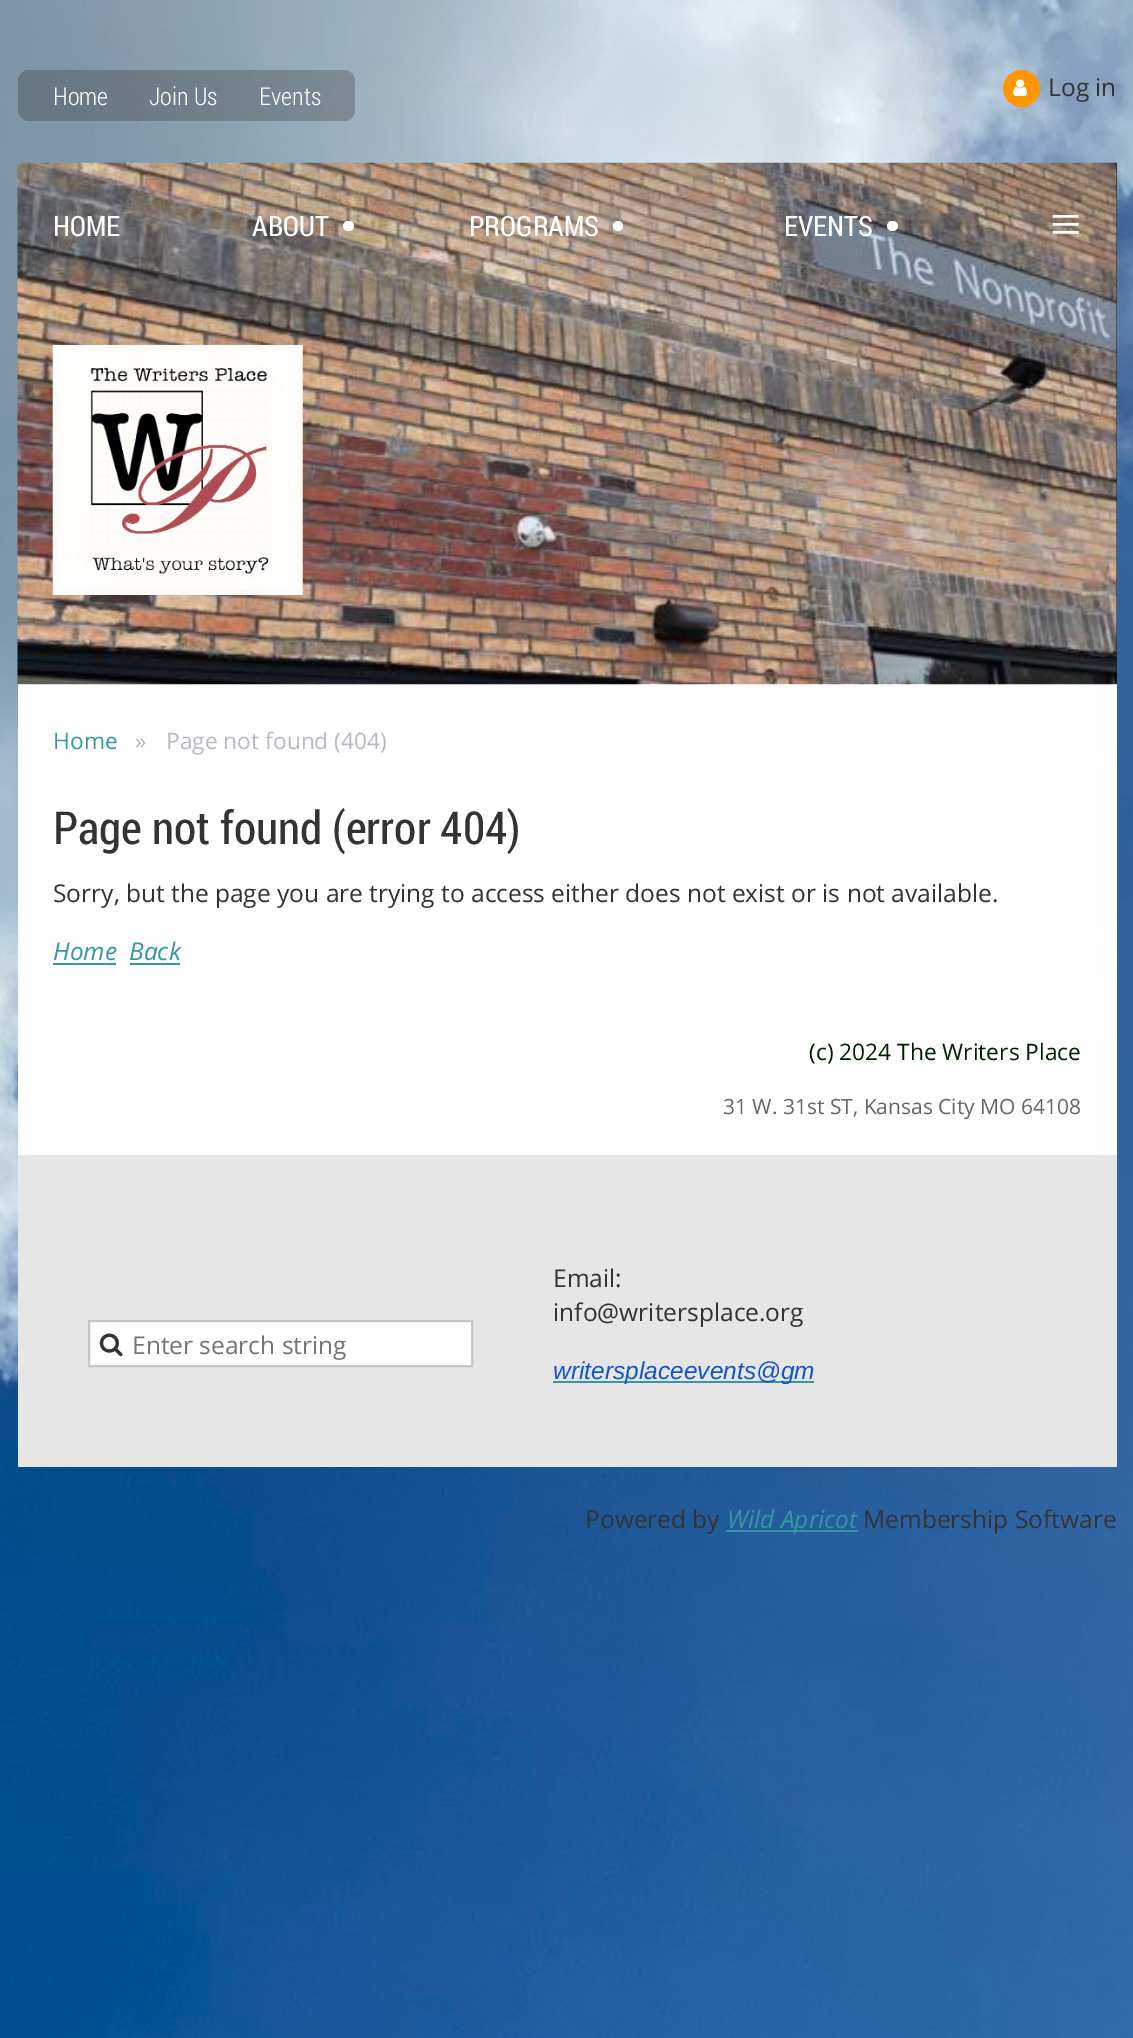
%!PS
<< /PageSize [1133 2038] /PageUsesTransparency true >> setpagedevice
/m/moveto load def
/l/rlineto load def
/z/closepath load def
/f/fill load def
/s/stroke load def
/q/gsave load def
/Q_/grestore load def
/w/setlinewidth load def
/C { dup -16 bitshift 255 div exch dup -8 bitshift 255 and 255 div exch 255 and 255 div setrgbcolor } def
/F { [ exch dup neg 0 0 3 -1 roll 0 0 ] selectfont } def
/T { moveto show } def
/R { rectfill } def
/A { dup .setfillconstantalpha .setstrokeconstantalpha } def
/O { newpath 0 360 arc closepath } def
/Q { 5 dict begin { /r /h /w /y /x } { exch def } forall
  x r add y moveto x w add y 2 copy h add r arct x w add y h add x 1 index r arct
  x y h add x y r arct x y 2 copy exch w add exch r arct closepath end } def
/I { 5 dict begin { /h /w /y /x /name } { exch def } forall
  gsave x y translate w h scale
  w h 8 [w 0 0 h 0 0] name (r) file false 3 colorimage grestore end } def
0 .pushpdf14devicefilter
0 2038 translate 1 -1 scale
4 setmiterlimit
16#FFFFFF C
0 0 1133 2038 R
(1.rgb) 0 0 1133 2038 I
0.3 A
16#333333 C
18 70 337 51 11 Q f
/RobotoCondensed-Light 24.5 F
1 A
16#FFFFFF C
(Home) 53 105 T
(Join Us) 149 105 T
(Events) 259 105 T
16#FE9701 C
1021.5 88.5 16.5 O q f Q_
4 w
s
(2.rgb) 1013 79 14 17 I
/OpenSans-Regular 24.5 F
16#333333 C
(Log in) 1048 96 T
16#1A1A1A C
1116 163 1 521 R
16#FFFFFF C
18 684 1099 471 R
(3.rgb) 17 162 1100 523 I
/RobotoCondensed-Regular 28 F
(HOME) 53 236 T
(ABOUT) 252 236 T
343 221 11 10 5 Q f
(PROGRAMS) 469 236 T
618 226 5 O f
(EVENTS) 784 236 T
887 221 11 10 5 Q f
/LiberationSerif-Regular 56 F
(≡) 1050 243 T
(4.rgb) 52 344 251 251 I
/OpenSans-Regular 22.75 F
16#3696A4 C
(Home) 53 749 T
16#B5BAC2 C
(») 135 749 T
(Page not found \(404\)) 166 749 T
/RobotoCondensed-Regular 45.5 F
16#333333 C
(Page not found \(error 404\)) 53 844 T
/OpenSans-Regular 24.5 F
(Sorry, but the page you are trying to access either does not exist or is not available.) 53 902 T
/OpenSans-Italic 24.5 F
16#3696A4 C
(Home) 53 960 T
53 963 63 2 R
(Back) 129 960 T
130 963 50 2 R
/OpenSans-Regular 22.75 F
16#002000 C
(\(c\) 2024 The Writers Place) 809 1060 T
/OpenSans-Regular 21 F
16#666666 C
(31 W. 31st ST, Kansas City MO 64108) 723 1114 T
16#E6E6E6 C
18 1155 1099 312 R
16#FFFFFF C
89 1321 m 383 0 l 0 45 l -383 0 l z q f Q_
16#C6C6C6 C
2 w
s
(5.rgb) 99 1333 24 24 I
/OpenSans-Regular 24.5 F
16#757575 C
(Enter search string) 132 1354 T
16#333333 C
(Email:) 553 1287 T
(info@writersplace.org) 553 1321 T
16#3696A4 C
553 1381 261 2 R
/LiberationSans-Italic 24.5 F
16#1155CC C
(writersplaceevents@gm) 553 1379 T
/OpenSans-Regular 24.5 F
16#333333 C
(Powered by) 585 1528 T
16#3696A4 C
726 1530 132 2 R
/OpenSans-Italic 24.5 F
(Wild Apricot) 727 1528 T
/OpenSans-Regular 24.5 F
16#333333 C
(Membership Software) 863 1528 T
.poppdf14devicefilter showpage
